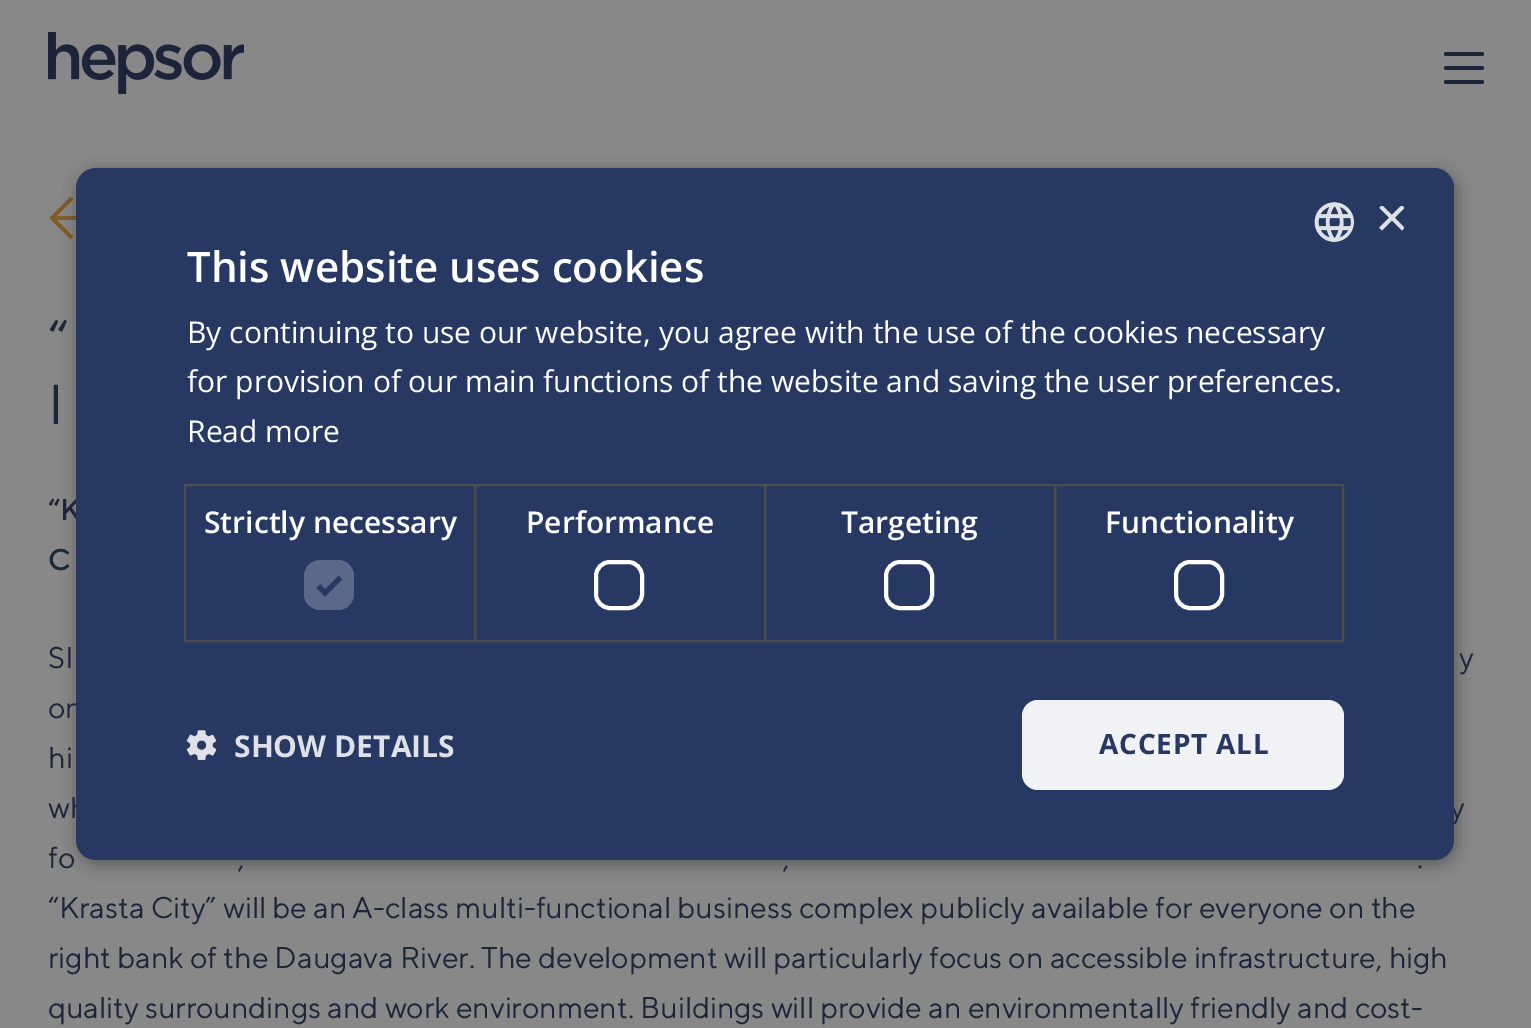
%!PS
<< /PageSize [1531 1028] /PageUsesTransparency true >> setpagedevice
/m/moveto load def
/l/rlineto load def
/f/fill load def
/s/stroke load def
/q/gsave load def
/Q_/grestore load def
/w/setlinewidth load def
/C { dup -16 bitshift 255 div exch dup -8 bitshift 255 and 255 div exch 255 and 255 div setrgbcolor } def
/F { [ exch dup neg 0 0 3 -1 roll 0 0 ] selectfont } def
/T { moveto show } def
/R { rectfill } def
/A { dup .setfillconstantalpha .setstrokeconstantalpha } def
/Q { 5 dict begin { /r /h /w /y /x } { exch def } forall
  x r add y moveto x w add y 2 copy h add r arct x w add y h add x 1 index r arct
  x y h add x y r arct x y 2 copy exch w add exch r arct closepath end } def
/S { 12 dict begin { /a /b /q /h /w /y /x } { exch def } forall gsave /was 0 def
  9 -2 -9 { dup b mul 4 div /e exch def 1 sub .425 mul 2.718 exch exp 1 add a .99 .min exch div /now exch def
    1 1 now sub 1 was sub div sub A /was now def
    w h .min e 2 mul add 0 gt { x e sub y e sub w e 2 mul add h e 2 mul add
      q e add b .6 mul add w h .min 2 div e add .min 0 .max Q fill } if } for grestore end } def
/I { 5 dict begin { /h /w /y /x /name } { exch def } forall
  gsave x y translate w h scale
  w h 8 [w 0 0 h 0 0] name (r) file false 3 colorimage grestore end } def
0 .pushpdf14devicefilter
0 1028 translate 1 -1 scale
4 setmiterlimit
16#888888 C
0 0 1531 1028 R
(1.rgb) 48 32 196 62 I
16#1C253A C
1444 66 40 4 2 Q f
1444 52 40 4 2 Q f
1444 80 40 4 2 Q f
16#845E2E C
53 216 23 4 R
16#845B27 C
3.7 w
72 238 m -20 -20 l 20 -20 l s
16#000000 C
78 172 1378 692 20 8 .35 S
/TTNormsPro-Medium 30 F
16#1C253A C
(“K) 48 520 T
/TTNormsPro-Regular 30 F
(on) 48 718 T
(wh) 48 818 T
(y) 1450 818 T
16#273863 C
76 168 1378 692 20 Q f
(2.rgb) 1314 202 40 40 I
q
1374 206 30 30 rectclip
/LiberationSans-Regular 58 F
16#DFE1E8 C
(×) 1375 237 T
Q_
/OpenSans-SemiBold 42 F
16#FFFFFF C
(This website uses cookies) 187 282 T
/OpenSans-Regular 30 F
(By continuing to use our website, you agree with the use of the cookies necessary) 187 343 T
(for provision of our main functions of the website and saving the user preferences.) 187 392 T
(Read more) 187 442 T
16#4D4D4D C
2 w
185 485 290 156 rectstroke
/OpenSans-SemiBold 30 F
16#FFFFFF C
(Strictly necessary) 204 533 T
16#5C6889 C
304 560 50 50 16 Q f
16#273863 C
5.2 w
318.5 586 m 6.5 7 l 15.5 -15.5 l s
16#4D4D4D C
2 w
475 485 290 156 rectstroke
16#FFFFFF C
(Performance) 526 533 T
4 w
596 562 46 46 14 Q s
16#4D4D4D C
2 w
765 485 290 156 rectstroke
16#FFFFFF C
(Targeting) 841 533 T
4 w
886 562 46 46 14 Q s
16#4D4D4D C
2 w
1055 485 288 156 rectstroke
16#FFFFFF C
(Functionality) 1105 533 T
4 w
1176 562 46 46 14 Q s
(3.rgb) 186 730 30 30 I
/OpenSans-Bold 30 F
16#DFE1E8 C
(SHOW DETAILS) 234 757 T
16#F1F2F5 C
1022 700 322 90 16 Q f
/OpenSans-Bold 28 F
16#273863 C
1099 754 m .75 0 (ACCEPT ALL) ashow
/TTNormsPro-Regular 56 F
16#1C253A C
(“) 48 360 T
(I) 48 424 T
/TTNormsPro-Medium 30 F
(C) 48 570 T
/TTNormsPro-Regular 30 F
(SI) 48 668 T
(y) 1459 668 T
(hi) 48 768 T
(fo) 48 868 T
(,) 238 868 T
(,) 783 868 T
(.) 1417 868 T
(“Krasta City” will be an A-class multi-functional business complex publicly available for everyone on the) 48 918 T
(right bank of the Daugava River. The development will particularly focus on accessible infrastructure, high) 48 968 T
(quality surroundings and work environment. Buildings will provide an environmentally friendly and cost-) 48 1018 T
.poppdf14devicefilter showpage
